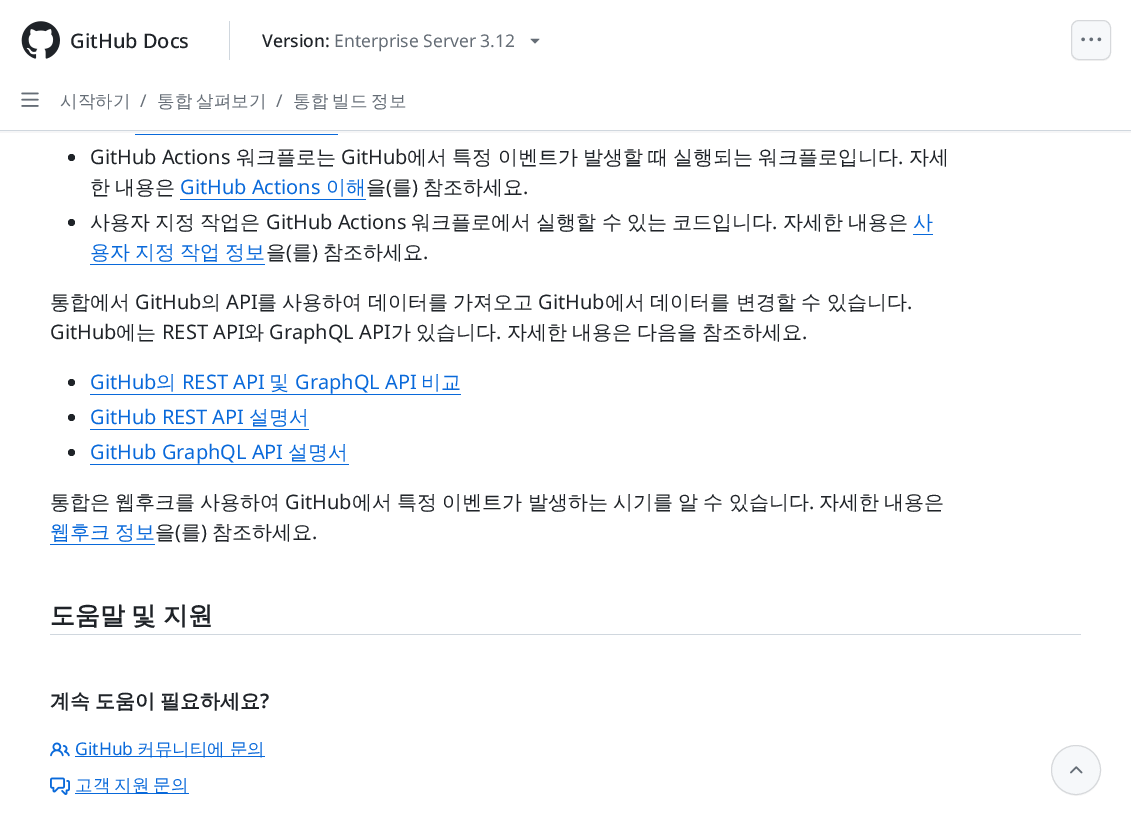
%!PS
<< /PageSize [1131 825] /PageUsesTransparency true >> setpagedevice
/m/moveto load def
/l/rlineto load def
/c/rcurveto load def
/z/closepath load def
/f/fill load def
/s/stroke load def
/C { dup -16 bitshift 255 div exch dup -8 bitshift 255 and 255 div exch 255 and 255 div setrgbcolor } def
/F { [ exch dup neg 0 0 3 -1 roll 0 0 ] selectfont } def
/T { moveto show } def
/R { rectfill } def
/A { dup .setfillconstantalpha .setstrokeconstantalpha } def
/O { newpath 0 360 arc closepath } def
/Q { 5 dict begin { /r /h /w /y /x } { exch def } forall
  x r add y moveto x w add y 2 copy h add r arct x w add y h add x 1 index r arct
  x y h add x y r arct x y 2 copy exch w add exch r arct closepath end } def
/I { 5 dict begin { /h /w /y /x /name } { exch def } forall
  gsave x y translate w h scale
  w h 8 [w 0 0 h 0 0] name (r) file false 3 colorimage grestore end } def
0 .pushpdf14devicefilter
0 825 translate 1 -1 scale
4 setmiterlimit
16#FFFFFF C
0 0 1131 825 R
0.04 A
16#1F2328 C
0 131 1131 2 R
1 A
16#D0D7DE C
0 130 1131 1 R
(1.rgb) 21 21 39 38 I
/NotoSans-Medium 20 F
16#1F2328 C
(GitHub Docs) 70 48 T
16#D0D7DE C
229 21 1 39 R
/NotoSans-Medium 17.5 F
16#1F2328 C
(Version:) 262 47 T
/NotoSans-Regular 17.5 F
16#656D76 C
(Enterprise Server 3.12) 334 47 T
(2.rgb) 530 38 10 6 I
16#F6F6F6 C
1071.5 27 m -.5 2 l 0 24 l 0 4.5 3.5 8 8 8 c 24 0 l 3.5 0 6.5 -2 7.5 -5.5 c -2.5 6 -10 4.5 -15 4.5 c -12.5 0 l -5 0 -10.5 0 -11.5 -6 c z f
16#F6F8FA C
1071 20 40 40 8 Q f
0.15 A
16#1F2328 C
1071.5 20.5 39 39 7.5 Q s
1 A
(3.rgb) 1081 37 21 5 I
(4.rgb) 21 92 18 15 I
/WenQuanYiZenHei-Medium 17.5 F
16#656D76 C
(시작하기) 60 107 T
/NotoSans-Regular 17.5 F
(/) 140 107 T
/WenQuanYiZenHei-Medium 17.5 F
157 107 m -1 0 32 (통합 살펴보기) widthshow
/NotoSans-Regular 17.5 F
(/) 276 107 T
/WenQuanYiZenHei-Medium 17.5 F
293 107 m -1 0 32 (통합 빌드 정보) widthshow
16#0969DA C
135 134 203 1 R
16#1F2328 C
71.5 157.5 3.5 O f
/NotoSans-Regular 20 F
(GitHub Actions) 90 164 T
/WenQuanYiZenHei-Medium 20 F
(워크플로는) 236 164 T
/NotoSans-Regular 20 F
(GitHub) 341 164 T
/WenQuanYiZenHei-Medium 20 F
(에서) 407 164 T
(특정) 452 164 T
(이벤트가) 498 164 T
(발생할) 583 164 T
(때) 648 164 T
(실행되는) 673 164 T
(워크플로입니다) 758 164 T
(자세) 909 164 T
/NotoSans-Regular 20 F
(.) 898 164 T
/WenQuanYiZenHei-Medium 20 F
90 194 m -1 0 32 (한 내용은) widthshow
/NotoSans-Regular 20 F
16#0969DA C
(GitHub Actions) 180 194 T
/WenQuanYiZenHei-Medium 20 F
(이해) 326 194 T
180 199 186 1 R
16#1F2328 C
(을 를) 366 194 T
/NotoSans-Regular 20 F
(\() 386 194 T
(\)) 412 194 T
/WenQuanYiZenHei-Medium 20 F
(참조하세요) 423 194 T
/NotoSans-Regular 20 F
(.) 523 194 T
71.5 222.5 3.5 O f
/WenQuanYiZenHei-Medium 20 F
(사용자) 90 229 T
(지정) 155 229 T
(작업은) 200 229 T
/NotoSans-Regular 20 F
(GitHub Actions) 266 229 T
/WenQuanYiZenHei-Medium 20 F
(워크플로에서) 411 229 T
(실행할) 536 229 T
(수) 602 229 T
(있는) 627 229 T
(코드입니다) 672 229 T
(자세한) 783 229 T
(내용은) 848 229 T
16#0969DA C
(사) 913 229 T
913 234 20 1 R
/NotoSans-Regular 20 F
16#1F2328 C
(.) 772 229 T
/WenQuanYiZenHei-Medium 20 F
16#0969DA C
90 259 m -1 0 32 (용자 지정 작업 정보) widthshow
90 264 175 1 R
16#1F2328 C
(을 를) 266 259 T
/NotoSans-Regular 20 F
(\() 286 259 T
(\)) 312 259 T
/WenQuanYiZenHei-Medium 20 F
(참조하세요) 323 259 T
/NotoSans-Regular 20 F
(.) 423 259 T
/WenQuanYiZenHei-Medium 20 F
(통합에서) 50 309 T
/NotoSans-Regular 20 F
(GitHub) 135 309 T
/WenQuanYiZenHei-Medium 20 F
(의) 201 309 T
/NotoSans-Regular 20 F
(API) 226 309 T
/WenQuanYiZenHei-Medium 20 F
257 309 m -.5 0 32 (를 사용하여 데이터를 가져오고) widthshow
/NotoSans-Regular 20 F
(GitHub) 538 309 T
/WenQuanYiZenHei-Medium 20 F
605 309 m -.5 0 32 (에서 데이터를 변경할 수 있습니다) widthshow
/NotoSans-Regular 20 F
(.) 907 309 T
(GitHub) 50 339 T
/WenQuanYiZenHei-Medium 20 F
(에는) 116 339 T
/NotoSans-Regular 20 F
(REST API) 162 339 T
/WenQuanYiZenHei-Medium 20 F
(와) 244 339 T
/NotoSans-Regular 20 F
(GraphQL API) 269 339 T
/WenQuanYiZenHei-Medium 20 F
(가) 391 339 T
(있습니다) 416 339 T
/NotoSans-Regular 20 F
(.) 496 339 T
/WenQuanYiZenHei-Medium 20 F
(자세한) 507 339 T
(내용은) 572 339 T
(다음을) 637 339 T
(참조하세요) 702 339 T
/NotoSans-Regular 20 F
(.) 802 339 T
71.5 382.5 3.5 O f
16#0969DA C
(GitHub) 90 389 T
/WenQuanYiZenHei-Medium 20 F
(의) 156 389 T
/NotoSans-Regular 20 F
(REST API) 182 389 T
/WenQuanYiZenHei-Medium 20 F
(및) 269 389 T
90 394 371 1 R
/NotoSans-Regular 20 F
(GraphQL API) 295 389 T
/WenQuanYiZenHei-Medium 20 F
(비교) 421 389 T
16#1F2328 C
71.5 417.5 3.5 O f
/NotoSans-Regular 20 F
16#0969DA C
(GitHub REST API) 90 424 T
/WenQuanYiZenHei-Medium 20 F
(설명서) 249 424 T
90 429 219 1 R
16#1F2328 C
71.5 452.5 3.5 O f
/NotoSans-Regular 20 F
16#0969DA C
(GitHub GraphQL API) 90 459 T
90 464 259 1 R
/WenQuanYiZenHei-Medium 20 F
(설명서) 288 459 T
16#1F2328 C
50 509 m -.75 0 32 (통합은 웹후크를 사용하여) widthshow
/NotoSans-Regular 20 F
(GitHub) 285 509 T
/WenQuanYiZenHei-Medium 20 F
352 509 m -.75 0 32 (에서 특정 이벤트가 발생하는 시기를 알 수 있습니다) widthshow
/NotoSans-Regular 20 F
(.) 809 509 T
/WenQuanYiZenHei-Medium 20 F
819 509 m -.75 0 32 (자세한 내용은) widthshow
16#0969DA C
50 539 m -1 0 32 (웹후크 정보) widthshow
50 544 105 1 R
16#1F2328 C
(을 를) 155 539 T
/NotoSans-Regular 20 F
(\() 175 539 T
(\)) 201 539 T
/WenQuanYiZenHei-Medium 20 F
(참조하세요) 212 539 T
/NotoSans-Regular 20 F
(.) 312 539 T
/WenQuanYiZenHei-Bold 25 F
50 624 m -1 0 32 (도움말 및 지원) widthshow
16#D0D7DE C
50 634 1031 1 R
/WenQuanYiZenHei-Bold 20 F
16#1F2328 C
50 708 m -1 0 32 (계속 도움이 필요하세요) widthshow
/NotoSans-SemiBold 20 F
(?) 260 708 T
(5.rgb) 50 742 20 15 I
/NotoSans-Regular 17.5 F
16#0969DA C
(GitHub) 75 755 T
75 756 190 1 R
/WenQuanYiZenHei-Medium 17.5 F
(커뮤니티에 문의) 137 755 T
(6.rgb) 50 777 20 18 I
75 793 114 1 R
75 791 m -1 0 32 (고객 지원 문의) widthshow
16#F6F6F6 C
1052 764 m -6 23 21 42 40 26 c 4 -3 7 -8 8 -13 c -8 31 -55 19 -48 -13 c z f
16#F6F8FA C
1076 770 25 O f
0.15 A
16#1F2328 C
1076 770 24.5 O s
1 A
(7.rgb) 1070 766 13 8 I
.poppdf14devicefilter showpage
